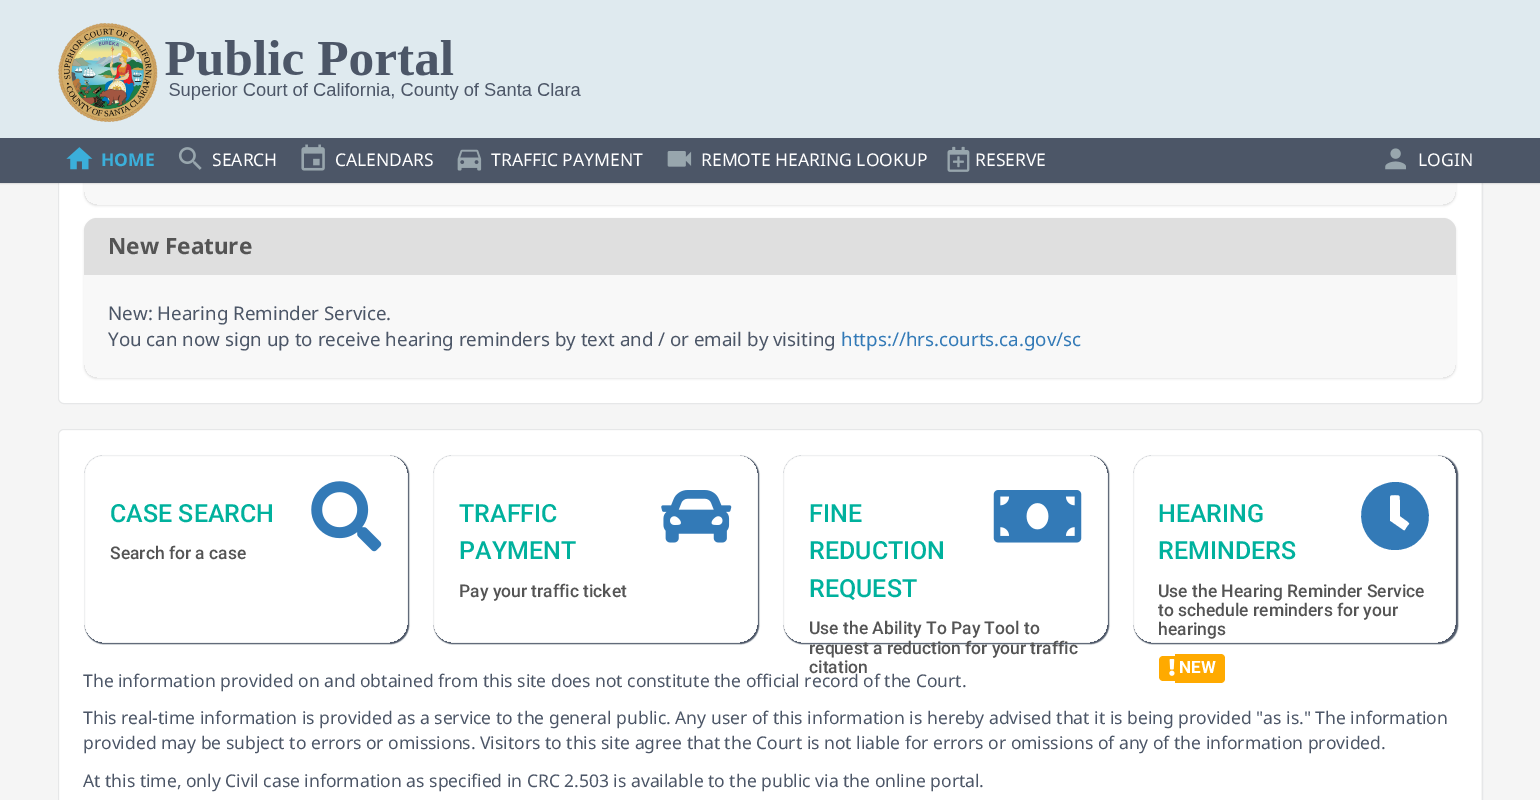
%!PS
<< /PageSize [1540 800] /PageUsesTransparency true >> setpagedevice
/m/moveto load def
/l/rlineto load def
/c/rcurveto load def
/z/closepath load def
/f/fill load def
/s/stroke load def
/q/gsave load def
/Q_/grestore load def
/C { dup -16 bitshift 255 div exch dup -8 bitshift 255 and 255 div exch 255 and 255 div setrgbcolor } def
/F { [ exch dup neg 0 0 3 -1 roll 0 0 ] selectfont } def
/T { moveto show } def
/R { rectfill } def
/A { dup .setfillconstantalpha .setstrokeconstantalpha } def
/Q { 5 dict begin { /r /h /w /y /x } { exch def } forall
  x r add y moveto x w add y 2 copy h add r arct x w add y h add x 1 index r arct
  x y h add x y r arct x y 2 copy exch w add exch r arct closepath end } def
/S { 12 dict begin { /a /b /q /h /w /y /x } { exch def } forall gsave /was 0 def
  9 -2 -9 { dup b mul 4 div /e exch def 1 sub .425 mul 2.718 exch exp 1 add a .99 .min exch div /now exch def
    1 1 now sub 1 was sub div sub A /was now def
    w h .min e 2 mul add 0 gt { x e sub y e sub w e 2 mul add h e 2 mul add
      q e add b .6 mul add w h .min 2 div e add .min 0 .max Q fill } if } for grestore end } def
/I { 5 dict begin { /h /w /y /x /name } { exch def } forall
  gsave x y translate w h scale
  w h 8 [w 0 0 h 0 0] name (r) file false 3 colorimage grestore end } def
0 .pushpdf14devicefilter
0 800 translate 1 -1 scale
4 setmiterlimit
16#F5F5F5 C
0 0 1540 800 R
16#FFFFFF C
59 -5 1422 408 5 Q f
0.08 A
16#36404A C
58.5 -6.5 1424 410 5.5 Q s
q
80 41 m 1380 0 l 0 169 l -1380 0 l z 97 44 m 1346 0 l 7 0 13 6 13 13 c 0 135 l 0 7 -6 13 -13 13 c -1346 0 l -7 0 -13 -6 -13 -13 c 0 -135 l 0 -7 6 -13 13 -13 c z eoclip newpath
1 A
16#000000 C
84 45 1372 161 13 1 .1 S
Q_
0.2 A
16#DBDBDB C
84 44 1372 161 13 Q f
1 A
16#DFEAEF C
0 0 1540 138 R
(1.rgb) 58 23 523 99 I
16#000000 C
0 139 1540 45 0 .5 .1 S
16#4C5667 C
0 138 1540 45 R
(2.rgb) 66 147 27 23 I
/NotoSans-Bold 17.5 F
16#3BAFDA C
(HOME) 101 166 T
(3.rgb) 178 147 24 23 I
/NotoSans-Regular 17.5 F
16#FFFFFF C
(SEARCH) 212 166 T
(4.rgb) 301 144 24 27 I
(CALENDARS) 335 166 T
(5.rgb) 457 149 25 22 I
(TRAFFIC PAYMENT) 491 166 T
(6.rgb) 667 151 25 16 I
(REMOTE HEARING LOOKUP) 701 166 T
(7.rgb) 947 146 23 26 I
(RESERVE) 975 166 T
(8.rgb) 1385 148 21 22 I
(LOGIN) 1418 166 T
q
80 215 m 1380 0 l 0 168 l -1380 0 l z 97 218 m 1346 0 l 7 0 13 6 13 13 c 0 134 l 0 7 -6 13 -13 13 c -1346 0 l -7 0 -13 -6 -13 -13 c 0 -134 l 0 -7 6 -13 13 -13 c z eoclip newpath
16#000000 C
84 219 1372 160 13 1 .1 S
Q_
0.2 A
16#DBDBDB C
84 218 1372 160 13 Q f
1 A
16#DFDFDF C
97 218 m 1346 0 l 7 0 13 6 13 13 c 0 44 l -1372 0 l 0 -44 l 0 -7 6 -13 13 -13 c z f
/NotoSans-Bold 22.5 F
16#545454 C
(New Feature) 108 254 T
/NotoSans-Regular 18.75 F
16#4C5667 C
(New: Hearing Reminder Service.) 108 320 T
(You can now sign up to receive hearing reminders by text and / or email by visiting) 108 346 T
16#337AB7 C
(https://hrs.courts.ca.gov/sc) 841 346 T
16#FFFFFF C
59 430 1422 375 5 Q f
0.08 A
16#36404A C
58.5 429.5 1424 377 5.5 Q s
q
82 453 m 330 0 l 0 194 l -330 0 l z 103 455 m 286 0 l 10.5 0 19 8.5 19 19 c 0 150 l 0 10.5 -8.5 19 -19 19 c -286 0 l -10.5 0 -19 -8.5 -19 -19 c 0 -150 l 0 -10.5 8.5 -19 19 -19 c z eoclip newpath
1 A
16#4C5667 C
85 456 324 188 19 .5 1 S
Q_
84.5 455.5 323 187 18.5 Q s
/Roboto-Medium 25 F
1 A
16#00B19D C
(CASE SEARCH) 110 522 T
(9.rgb) 311 481 71 71 I
/Roboto-Medium 17.5 F
16#545454 C
(Search for a case) 110 559 T
q
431 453 m 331 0 l 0 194 l -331 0 l z 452 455 m 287 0 l 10.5 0 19 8.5 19 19 c 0 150 l 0 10.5 -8.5 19 -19 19 c -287 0 l -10.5 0 -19 -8.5 -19 -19 c 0 -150 l 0 -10.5 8.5 -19 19 -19 c z eoclip newpath
16#4C5667 C
434 456 325 188 19 .5 1 S
Q_
0.08 A
16#36404A C
433.5 455.5 324 187 18.5 Q s
/Roboto-Medium 25 F
1 A
16#00B19D C
(TRAFFIC) 459 522 T
(PAYMENT) 459 559 T
(10.rgb) 661 490 71 53 I
/Roboto-Medium 17.5 F
16#545454 C
(Pay your traffic ticket) 459 597 T
q
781 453 m 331 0 l 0 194 l -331 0 l z 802 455 m 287 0 l 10.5 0 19 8.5 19 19 c 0 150 l 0 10.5 -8.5 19 -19 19 c -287 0 l -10.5 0 -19 -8.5 -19 -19 c 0 -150 l 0 -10.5 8.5 -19 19 -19 c z eoclip newpath
16#4C5667 C
784 456 325 188 19 .5 1 S
Q_
0.08 A
16#36404A C
783.5 455.5 324 187 18.5 Q s
/Roboto-Medium 25 F
1 A
16#00B19D C
(FINE) 809 522 T
(REDUCTION) 809 559 T
(REQUEST) 809 597 T
(11.rgb) 993 490 89 53 I
/Roboto-Medium 17.5 F
16#545454 C
(Use the Ability To Pay Tool to) 809 634 T
(request a reduction for your traffic) 809 654 T
(citation) 809 673 T
q
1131 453 m 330 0 l 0 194 l -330 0 l z 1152 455 m 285 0 l 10.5 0 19 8.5 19 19 c 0 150 l 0 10.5 -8.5 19 -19 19 c -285 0 l -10.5 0 -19 -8.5 -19 -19 c 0 -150 l 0 -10.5 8.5 -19 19 -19 c z eoclip newpath
16#4C5667 C
1134 456 324 188 19 .5 1 S
Q_
0.08 A
16#36404A C
1133.5 455.5 322 187 18.5 Q s
/Roboto-Medium 25 F
1 A
16#00B19D C
(HEARING) 1158 522 T
(REMINDERS) 1158 559 T
16#337AB7 C
1395 482 m -7 0 -15 3 -21 7 c -25 20 -11 61 21 61 c 7 0 15 -2 21 -7 c 25 -20 11 -61 -21 -61 c z 1403 530 m -13 -9 l 0 -20 l 0 -6 -1 -6 5 -6 c 5 0 5 0 5 5 c 0 16 l 7 5 l 4 3 2 3 0 6 c -1 1 -2 5 -4 3 c z f
/Roboto-Medium 17.5 F
16#545454 C
(Use the Hearing Reminder Service) 1158 597 T
(to schedule reminders for your) 1158 616 T
(hearings) 1158 635 T
16#FFAA00 C
1163 656 m 12 0 l 0 25 l -12 0 l -2 0 -4 -2 -4 -4 c 0 -17 l 0 -2 2 -4 4 -4 c z f
1175 654 m 46 0 l 2 0 4 2 4 4 c 0 21 l 0 2 -2 4 -4 4 c -46 0 l z f
(12.rgb) 1169 659 6 17 I
/Roboto-Bold 17 F
16#FFFFFF C
(NEW) 1179 673 T
/NotoSans-Regular 17.5 F
16#4C5667 C
(The information provided on and obtained from this site does not constitute the official record of the Court.) 83 687 T
(This real-time information is provided as a service to the general public. Any user of this information is hereby advised that it is being provided "as is." The information) 83 724 T
(provided may be subject to errors or omissions. Visitors to this site agree that the Court is not liable for errors or omissions of any of the information provided.) 83 749 T
(At this time, only Civil case information as specified in CRC 2.503 is available to the public via the online portal.) 83 787 T
.poppdf14devicefilter showpage
